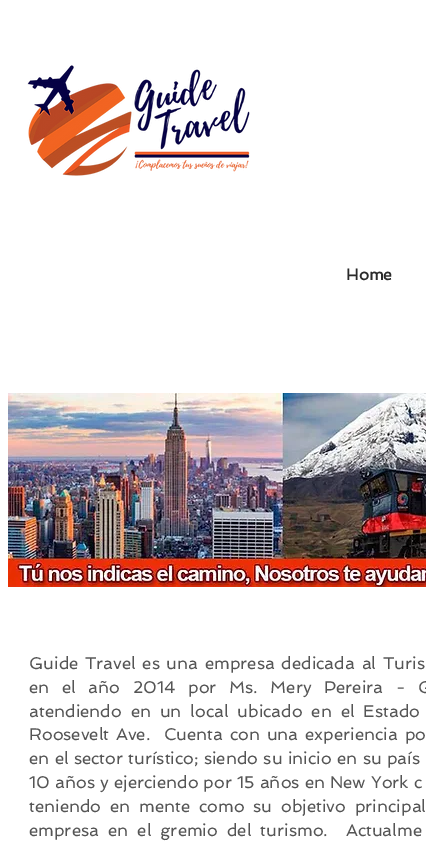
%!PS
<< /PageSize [426 845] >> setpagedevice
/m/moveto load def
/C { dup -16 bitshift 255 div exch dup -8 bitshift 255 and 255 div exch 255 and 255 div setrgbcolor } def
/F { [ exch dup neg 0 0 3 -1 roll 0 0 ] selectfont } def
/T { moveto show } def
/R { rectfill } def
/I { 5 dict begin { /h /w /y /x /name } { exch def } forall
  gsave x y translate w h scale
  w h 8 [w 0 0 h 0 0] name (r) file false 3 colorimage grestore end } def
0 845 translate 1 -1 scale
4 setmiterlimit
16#FFFFFF C
0 0 426 845 R
(1.rgb) 27 65 223 111 I
/Spinnaker-Bold 16 F
16#2A2A2A C
(Home) 346 280 T
(2.rgb) 8 393 418 194 I
/Spinnaker-Regular 17 F
16#555555 C
29 669 m 1.75 0 32 (Guide Travel es una empresa dedicada al Turis) widthshow
29 693 m 7.75 0 32 (en el año 2014 por Ms. Mery Pereira - G) widthshow
29 717 m 4 0 32 (atendiendo en un local ubicado en el Estado) widthshow
29 740 m 2 0 32 (Roosevelt Ave.  Cuenta con una experiencia po) widthshow
29 764 m .5 0 32 (en el sector turístico; siendo su inicio en su país) widthshow
29 788 m .25 0 32 (10 años y ejerciendo por 15 años en New York c) widthshow
29 812 m 4 0 32 (teniendo en mente como su objetivo principal) widthshow
29 836 m 4.25 0 32 (empresa en el gremio del turismo.  Actualme) widthshow
showpage
